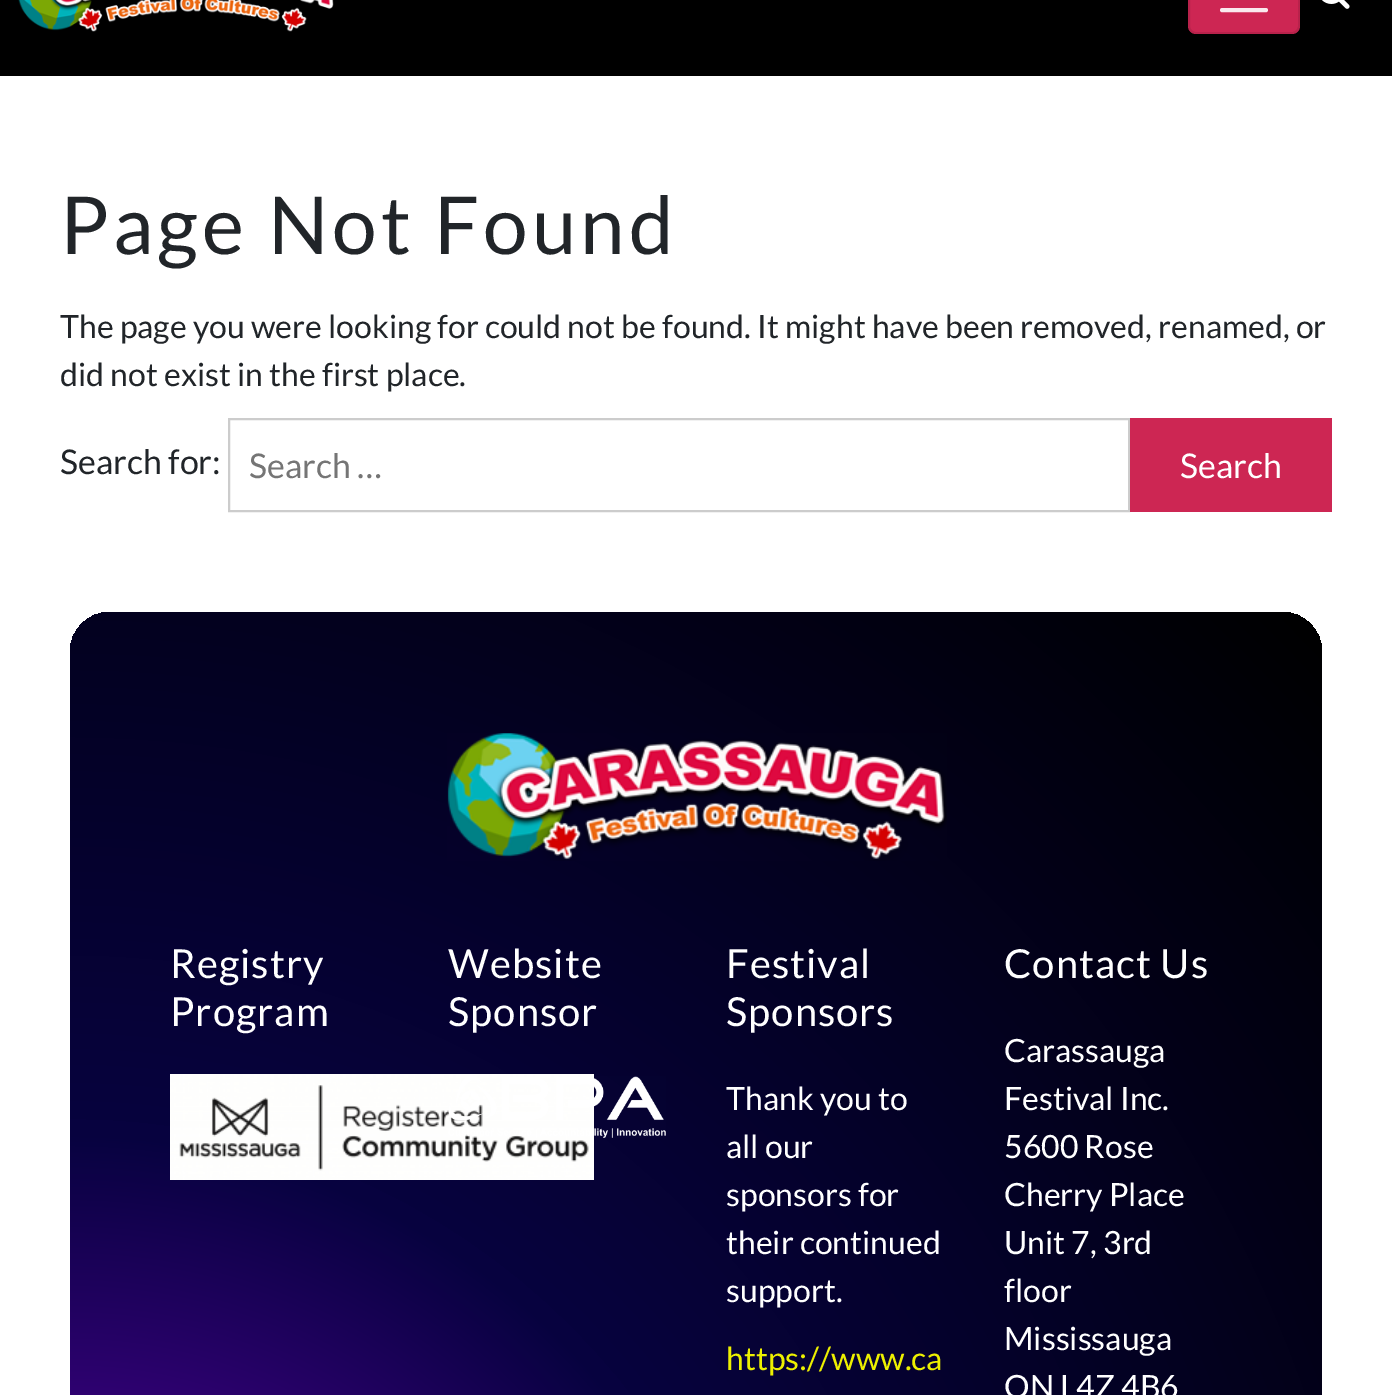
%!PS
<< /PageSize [1392 1395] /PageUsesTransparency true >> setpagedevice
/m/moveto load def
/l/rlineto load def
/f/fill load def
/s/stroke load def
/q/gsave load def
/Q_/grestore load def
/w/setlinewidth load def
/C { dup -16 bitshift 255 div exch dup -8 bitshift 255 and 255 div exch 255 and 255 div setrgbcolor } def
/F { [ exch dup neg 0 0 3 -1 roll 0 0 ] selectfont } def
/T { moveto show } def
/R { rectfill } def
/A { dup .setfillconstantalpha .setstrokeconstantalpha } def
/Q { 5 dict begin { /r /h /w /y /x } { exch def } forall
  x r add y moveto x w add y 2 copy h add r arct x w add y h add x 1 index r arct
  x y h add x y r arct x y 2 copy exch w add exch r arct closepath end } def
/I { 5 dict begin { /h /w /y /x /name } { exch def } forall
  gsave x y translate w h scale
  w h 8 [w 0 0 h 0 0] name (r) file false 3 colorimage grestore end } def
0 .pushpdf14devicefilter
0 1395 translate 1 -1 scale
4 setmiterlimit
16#FFFFFF C
0 0 1392 1395 R
16#000000 C
0 0 1392 76 R
(1.rgb) 18 0 316 32 I
16#CD2653 C
1188 -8 112 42 8 Q f
0.1 A
16#000000 C
2 w
1189 -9 110 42 7 Q s
1 A
16#FAE9EE C
4 w
1 setlinecap
1222 -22 m 44 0 l 1222 -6 m 44 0 l 1222 10 m 44 0 l s
(2.rgb) 1322 0 28 9 I
/Lato-Regular 80 F
16#212529 C
60 254 m 4 0 (Page Not Found) ashow
/Lato-Regular 32 F
(The page you were looking for could not be found. It might have been removed, renamed, or) 60 338 T
(did not exist in the first place.) 60 386 T
/Lato-Regular 34 F
(Search for:) 60 474 T
16#CCCCCC C
2 w
0 setlinecap
229 419 900 92 rectstroke
16#757575 C
(Search …) 249 478 T
16#CD2653 C
1130 418 202 94 R
16#FFFFFF C
(Search) 1180 478 T
q 70 612 1252 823 40 Q clip newpath 70 1828 translate 1745 1745 scale
<< /ShadingType 3 /ColorSpace /DeviceRGB /Coords [0 0 0 0 0 1] /Extend [true true] /Function << /FunctionType 3 /Domain [0 1] /Functions [<< /FunctionType 2 /Domain [0 1] /C0 [.435 0 .757] /C1 [.027 .008 .247] /N 1 >> << /FunctionType 2 /Domain [0 1] /C0 [.027 .008 .247] /C1 [0 0 0] /N 1 >>] /Bounds [.4] /Encode [0 1 0 1] >> >> shfill Q_
(3.rgb) 447 733 500 128 I
/Lato-Regular 40 F
170 978 m 1 0 (Registry) ashow
170 1026 m 1 0 (Program) ashow
(4.rgb) 170 1074 424 106 I
448 978 m 1 0 (Website) ashow
448 1026 m 1 0 (Sponsor) ashow
(5.rgb) 448 1076 218 62 I
726 978 m 1 0 (Festival) ashow
726 1026 m 1 0 (Sponsors) ashow
/Lato-Regular 32 F
(Thank you to) 726 1110 T
(all our) 726 1158 T
(sponsors for) 726 1206 T
(their continued) 726 1254 T
(support.) 726 1302 T
16#EDF000 C
(https://www.ca) 726 1370 T
/Lato-Regular 40 F
16#FFFFFF C
1004 978 m 1 0 (Contact Us) ashow
/Lato-Regular 32 F
(Carassauga) 1004 1062 T
(Festival Inc.) 1004 1110 T
(5600 Rose) 1004 1158 T
(Cherry Place) 1004 1206 T
(Unit 7, 3rd) 1004 1254 T
(floor) 1004 1302 T
(Mississauga) 1004 1350 T
(ON L4Z 4B6) 1004 1398 T
.poppdf14devicefilter showpage
